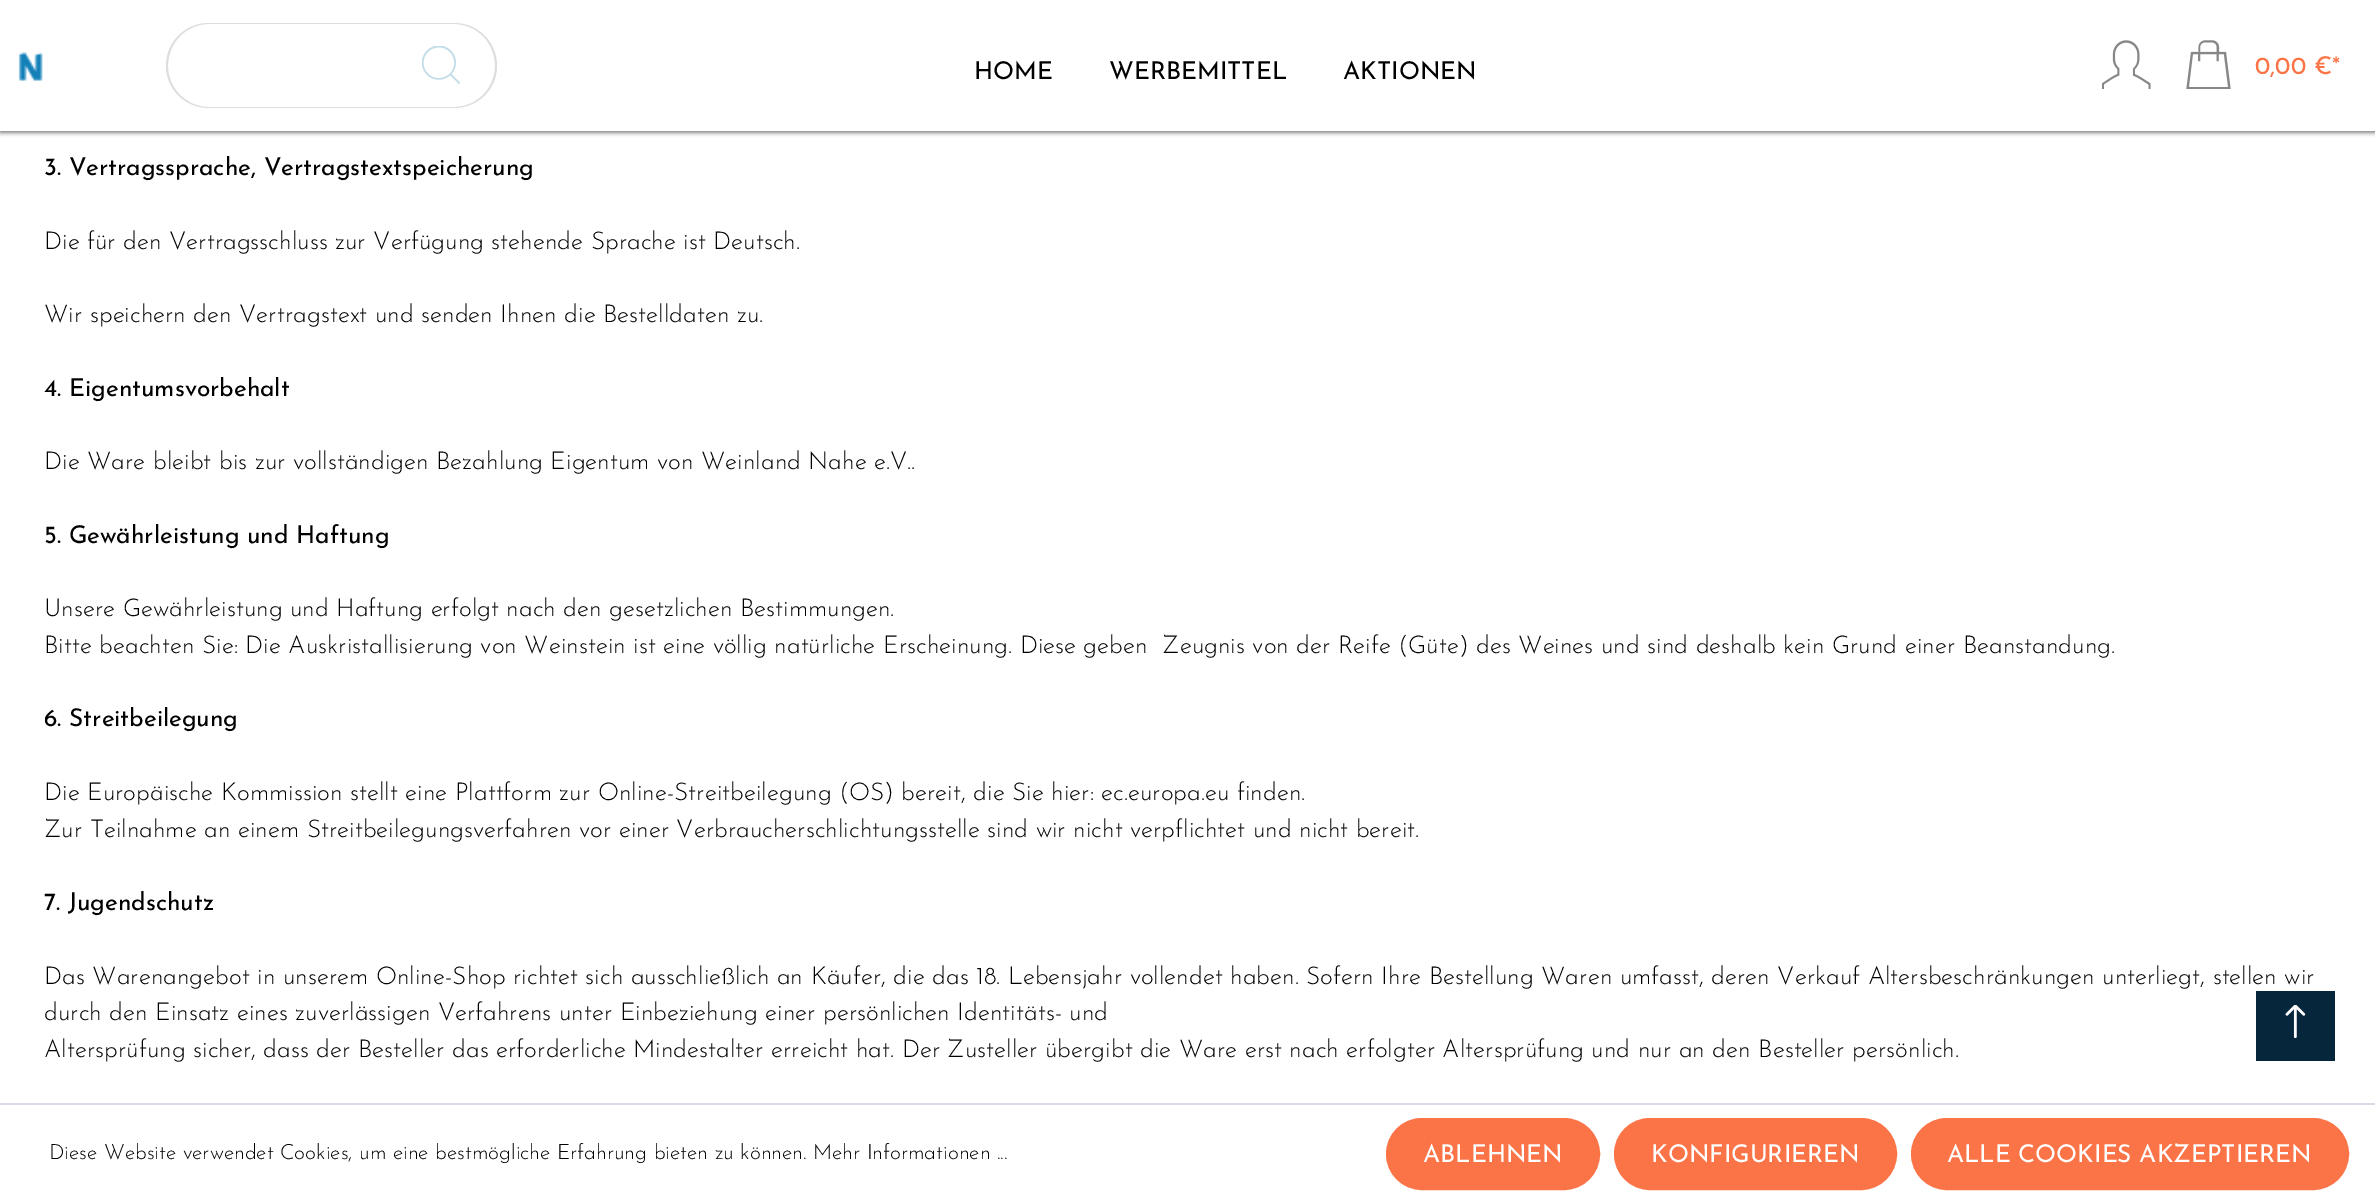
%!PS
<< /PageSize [2375 1204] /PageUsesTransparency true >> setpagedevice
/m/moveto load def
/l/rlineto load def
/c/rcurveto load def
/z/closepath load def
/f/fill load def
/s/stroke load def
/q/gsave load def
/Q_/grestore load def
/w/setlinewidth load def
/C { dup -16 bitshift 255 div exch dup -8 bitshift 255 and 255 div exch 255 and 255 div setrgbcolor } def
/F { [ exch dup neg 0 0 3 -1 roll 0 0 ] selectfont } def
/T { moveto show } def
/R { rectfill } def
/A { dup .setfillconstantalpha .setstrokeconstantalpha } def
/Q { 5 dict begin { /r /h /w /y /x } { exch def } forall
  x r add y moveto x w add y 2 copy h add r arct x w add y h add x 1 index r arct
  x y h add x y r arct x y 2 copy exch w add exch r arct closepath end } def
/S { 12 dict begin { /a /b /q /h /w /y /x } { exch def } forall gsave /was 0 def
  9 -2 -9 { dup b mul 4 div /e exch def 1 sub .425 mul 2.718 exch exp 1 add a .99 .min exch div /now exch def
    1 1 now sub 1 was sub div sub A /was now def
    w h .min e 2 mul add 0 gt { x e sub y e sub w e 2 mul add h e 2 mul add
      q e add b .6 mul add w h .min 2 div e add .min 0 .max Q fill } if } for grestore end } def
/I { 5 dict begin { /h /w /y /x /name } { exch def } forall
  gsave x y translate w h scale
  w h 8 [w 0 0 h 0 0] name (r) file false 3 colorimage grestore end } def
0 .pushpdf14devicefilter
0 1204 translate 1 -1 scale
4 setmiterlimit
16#FFFFFF C
0 0 2375 1204 R
16#808080 C
0 2 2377 131 0 2 1 S
16#FFFFFF C
0 0 2375 131 R
(1.rgb) 18 52 25 29 I
16#DEDEDE C
209 23 m 207 0 l 0 85 l -207 0 l -24 0 -43 -19 -43 -42 c 0 -24 19 -43 43 -43 c z 209 24 m 207 0 l 0 83 l -207 0 l -23 0 -41 -19 -41 -41 c 0 -23 18 -42 41 -42 c z eofill
16#FFFFFF C
415 23 m 39 0 l 23.5 0 43 19.5 43 43 c 0 23.5 -19.5 43 -43 43 c -39 0 l z f
16#DEDEDE C
415 23 m 39 0 l 24 0 43 19 43 43 c 0 23 -19 42 -43 42 c -39 0 l z 415 24 m 39 0 l 23 0 41 19 41 42 c 0 22 -18 41 -41 41 c -39 0 l z eofill
(2.rgb) 422 46 38 38 I
/JosefinSans-Regular 24.5 F
16#000000 C
(HOME) 974 79 T
(WERBEMITTEL) 1109 79 T
(AKTIONEN) 1343 79 T
(3.rgb) 2102 40 49 49 I
(4.rgb) 2186 40 45 49 I
16#FB7448 C
(0,00 €*) 2255 74 T
16#000000 C
(3. Vertragssprache, Vertragstextspeicherung) 44 175 T
/JosefinSans-Light 24.5 F
(Die für den Vertragsschluss zur Verfügung stehende Sprache ist Deutsch.) 44 249 T
(Wir speichern den Vertragstext und senden Ihnen die Bestelldaten zu.) 44 322 T
/JosefinSans-Regular 24.5 F
(4. Eigentumsvorbehalt) 44 396 T
/JosefinSans-Light 24.5 F
(Die Ware bleibt bis zur vollständigen Bezahlung Eigentum von Weinland Nahe e.V..) 44 469 T
/JosefinSans-Regular 24.5 F
(5. Gewährleistung und Haftung) 44 543 T
/JosefinSans-Light 24.5 F
(Unsere Gewährleistung und Haftung erfolgt nach den gesetzlichen Bestimmungen.) 44 616 T
(Bitte beachten Sie: Die Auskristallisierung von Weinstein ist eine völlig natürliche Erscheinung. Diese geben  Zeugnis von der Reife \(Güte\) des Weines und sind deshalb kein Grund einer Beanstandung.) 44 653 T
/JosefinSans-Regular 24.5 F
(6. Streitbeilegung) 44 726 T
/JosefinSans-Light 24.5 F
(Die Europäische Kommission stellt eine Plattform zur Online-Streitbeilegung \(OS\) bereit, die Sie hier: ec.europa.eu finden.) 44 800 T
(Zur Teilnahme an einem Streitbeilegungsverfahren vor einer Verbraucherschlichtungsstelle sind wir nicht verpflichtet und nicht bereit.) 44 837 T
/JosefinSans-Regular 24.5 F
(7. Jugendschutz) 44 910 T
/JosefinSans-Light 24.5 F
(Das Warenangebot in unserem Online-Shop richtet sich ausschließlich an Käufer, die das 18. Lebensjahr vollendet haben. Sofern Ihre Bestellung Waren umfasst, deren Verkauf Altersbeschränkungen unterliegt, stellen wir) 44 984 T
(durch den Einsatz eines zuverlässigen Verfahrens unter Einbeziehung einer persönlichen Identitäts- und) 44 1020 T
(Altersprüfung sicher, dass der Besteller das erforderliche Mindestalter erreicht hat. Der Zusteller übergibt die Ware erst nach erfolgter Altersprüfung und nur an den Besteller persönlich.) 44 1057 T
16#06263C C
2256 991 79 70 R
(5.rgb) 2285 1005 21 33 I
16#DADAE5 C
0 1103 2375 2 R
/JosefinSans-Light 21 F
16#000000 C
(Diese Website verwendet Cookies, um eine bestmögliche Erfahrung bieten zu können. Mehr Informationen ...) 49 1159 T
16#FB7448 C
1387 1119 212 70 35 Q q f Q_
2 w
s
/JosefinSans-Regular 24.5 F
16#FFFFFF C
(ABLEHNEN) 1423 1162 T
16#FB7448 C
1615 1119 281 70 35 Q q f Q_
s
16#FFFFFF C
(KONFIGURIEREN) 1651 1162 T
16#FB7448 C
1912 1119 436 70 35 Q q f Q_
s
16#FFFFFF C
(ALLE COOKIES AKZEPTIEREN) 1947 1162 T
.poppdf14devicefilter showpage
